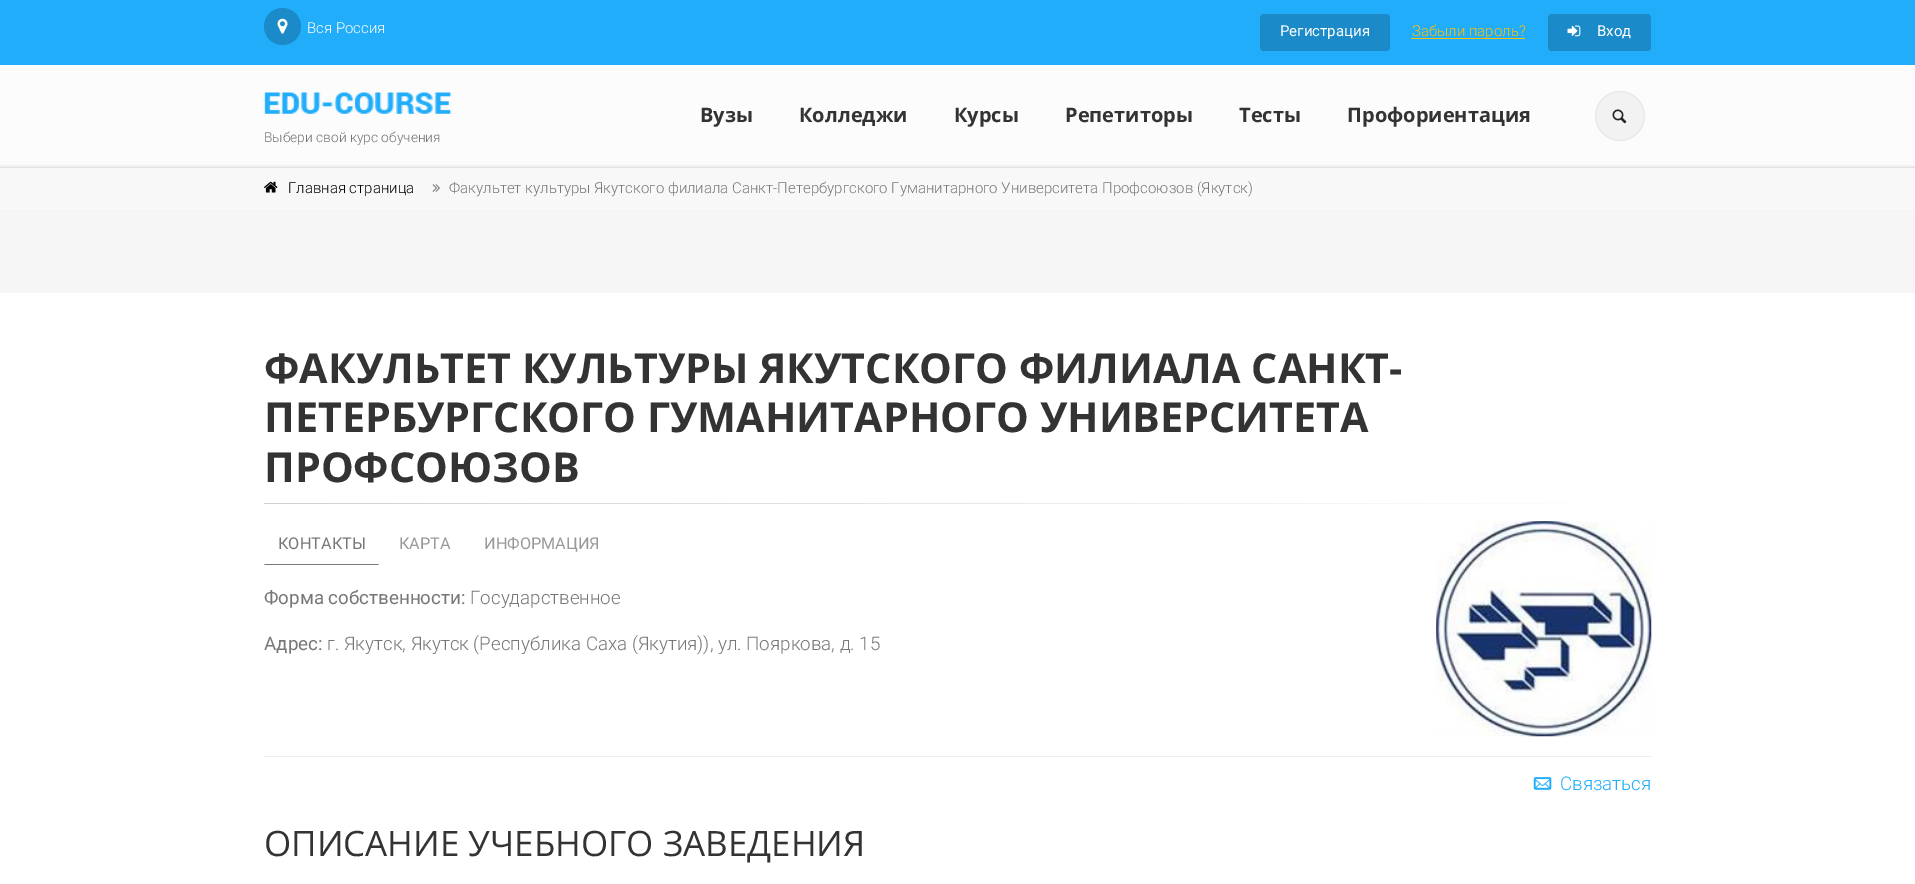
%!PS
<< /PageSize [1915 884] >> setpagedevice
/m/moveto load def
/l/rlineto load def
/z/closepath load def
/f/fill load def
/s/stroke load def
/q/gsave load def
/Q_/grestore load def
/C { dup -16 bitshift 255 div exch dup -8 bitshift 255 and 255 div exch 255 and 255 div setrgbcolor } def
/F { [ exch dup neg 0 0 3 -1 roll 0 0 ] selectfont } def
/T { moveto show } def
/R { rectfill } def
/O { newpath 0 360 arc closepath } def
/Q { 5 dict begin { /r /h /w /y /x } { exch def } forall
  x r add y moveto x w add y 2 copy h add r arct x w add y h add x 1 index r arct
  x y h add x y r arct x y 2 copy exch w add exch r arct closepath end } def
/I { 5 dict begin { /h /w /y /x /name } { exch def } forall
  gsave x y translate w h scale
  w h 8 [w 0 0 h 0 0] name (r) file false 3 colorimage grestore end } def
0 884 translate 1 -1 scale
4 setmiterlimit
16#FFFFFF C
0 0 1915 884 R
16#21ADFA C
0 0 1915 65 R
16#1A8AC8 C
282.5 26.5 18.5 O f
(1.rgb) 277 18 11 16 I
/Roboto-Light 15 F
16#FFFFFF C
(Вся Россия) 307 33 T
16#1A8AC8 C
1260 14 130 37 4 Q f
/Roboto-Regular 15 F
16#FFFFFF C
(Регистрация) 1280 36 T
16#FFC107 C
1411 38 114 1 R
/Roboto-Light 15 F
(Забыли пароль?) 1412 36 T
16#1A8AC8 C
1548 14 103 37 4 Q f
(2.rgb) 1567 25 14 12 I
/Roboto-Regular 15 F
16#FFFFFF C
(Вход) 1597 36 T
16#FCFCFC C
0 66 1915 99 R
16#F1F1F1 C
0 165 1915 2 R
/OpenSans-Bold 20 F
16#333333 C
(Вузы) 700 122 T
(Колледжи) 799 122 T
(Курсы) 954 122 T
(Репетиторы) 1065 122 T
(Тесты) 1239 122 T
(Профориентация) 1347 122 T
16#F2F2F2 C
1620 116 24.5 O q f Q_
16#E9E9E9 C
s
(3.rgb) 1612 109 15 15 I
(4.rgb) 263 92 189 22 I
/Roboto-Light 13.75 F
16#777777 C
(Выбери свой курс обучения) 264 142 T
16#E2E2E2 C
0 167 1915 1 R
16#F8F8F8 C
0 168 1915 42 R
16#F4F4F4 C
0 210 1915 1 R
(5.rgb) 264 181 14 12 I
/Roboto-Light 15 F
16#000000 C
(Главная страница) 288 193 T
(6.rgb) 432 184 8 8 I
16#777777 C
(Факультет культуры Якутского филиала Санкт-Петербургского Гуманитарного Университета Профсоюзов \(Якутск\)) 449 193 T
16#F6F6F6 C
0 211 1915 82 R
/OpenSans-Bold 41.25 F
16#333333 C
(ФАКУЛЬТЕТ КУЛЬТУРЫ ЯКУТСКОГО ФИЛИАЛА САНКТ-) 264 383 T
(ПЕТЕРБУРГСКОГО ГУМАНИТАРНОГО УНИВЕРСИТЕТА) 264 432 T
(ПРОФСОЮЗОВ) 264 482 T
q 264 503 m 1307 0 l 0 1 l -1307 0 l z clip newpath
<< /ShadingType 2 /ColorSpace /DeviceRGB /Coords [264 503 1651 503] /Extend [true true] /Function << /FunctionType 3 /Domain [0 1] /Functions [<< /FunctionType 2 /Domain [0 1] /C0 [.82 .82 .82] /C1 [.878 .878 .878] /N 1 >> << /FunctionType 2 /Domain [0 1] /C0 [.878 .878 .878] /C1 [.949 .949 .949] /N 1 >> << /FunctionType 2 /Domain [0 1] /C0 [.949 .949 .949] /C1 [1 1 1] /N 1 >>] /Bounds [.35 .7] /Encode [0 1 0 1 0 1] >> >> shfill Q_
16#777777 C
379 565 m -115 0 l 1 -1 l 113 0 l z f
/Roboto-Regular 16.25 F
(КОНТАКТЫ) 278 549 T
16#999999 C
(КАРТА) 399 549 T
(ИНФОРМАЦИЯ) 484 549 T
/Roboto-Regular 18.75 F
16#777777 C
(Форма собственности:) 264 604 T
/Roboto-Light 18.75 F
(Государственное) 470 604 T
/Roboto-Regular 18.75 F
(Адрес:) 264 650 T
/Roboto-Light 18.75 F
(г. Якутск, Якутск \(Республика Саха \(Якутия\)\), ул. Пояркова, д. 15) 327 650 T
(7.rgb) 1436 521 216 216 I
16#EEEEEE C
264 756 1387 1 R
(8.rgb) 1533 777 19 13 I
16#21ADFA C
(Связаться) 1560 790 T
/OpenSans-Regular 35 F
16#333333 C
(ОПИСАНИЕ УЧЕБНОГО ЗАВЕДЕНИЯ) 264 856 T
showpage
